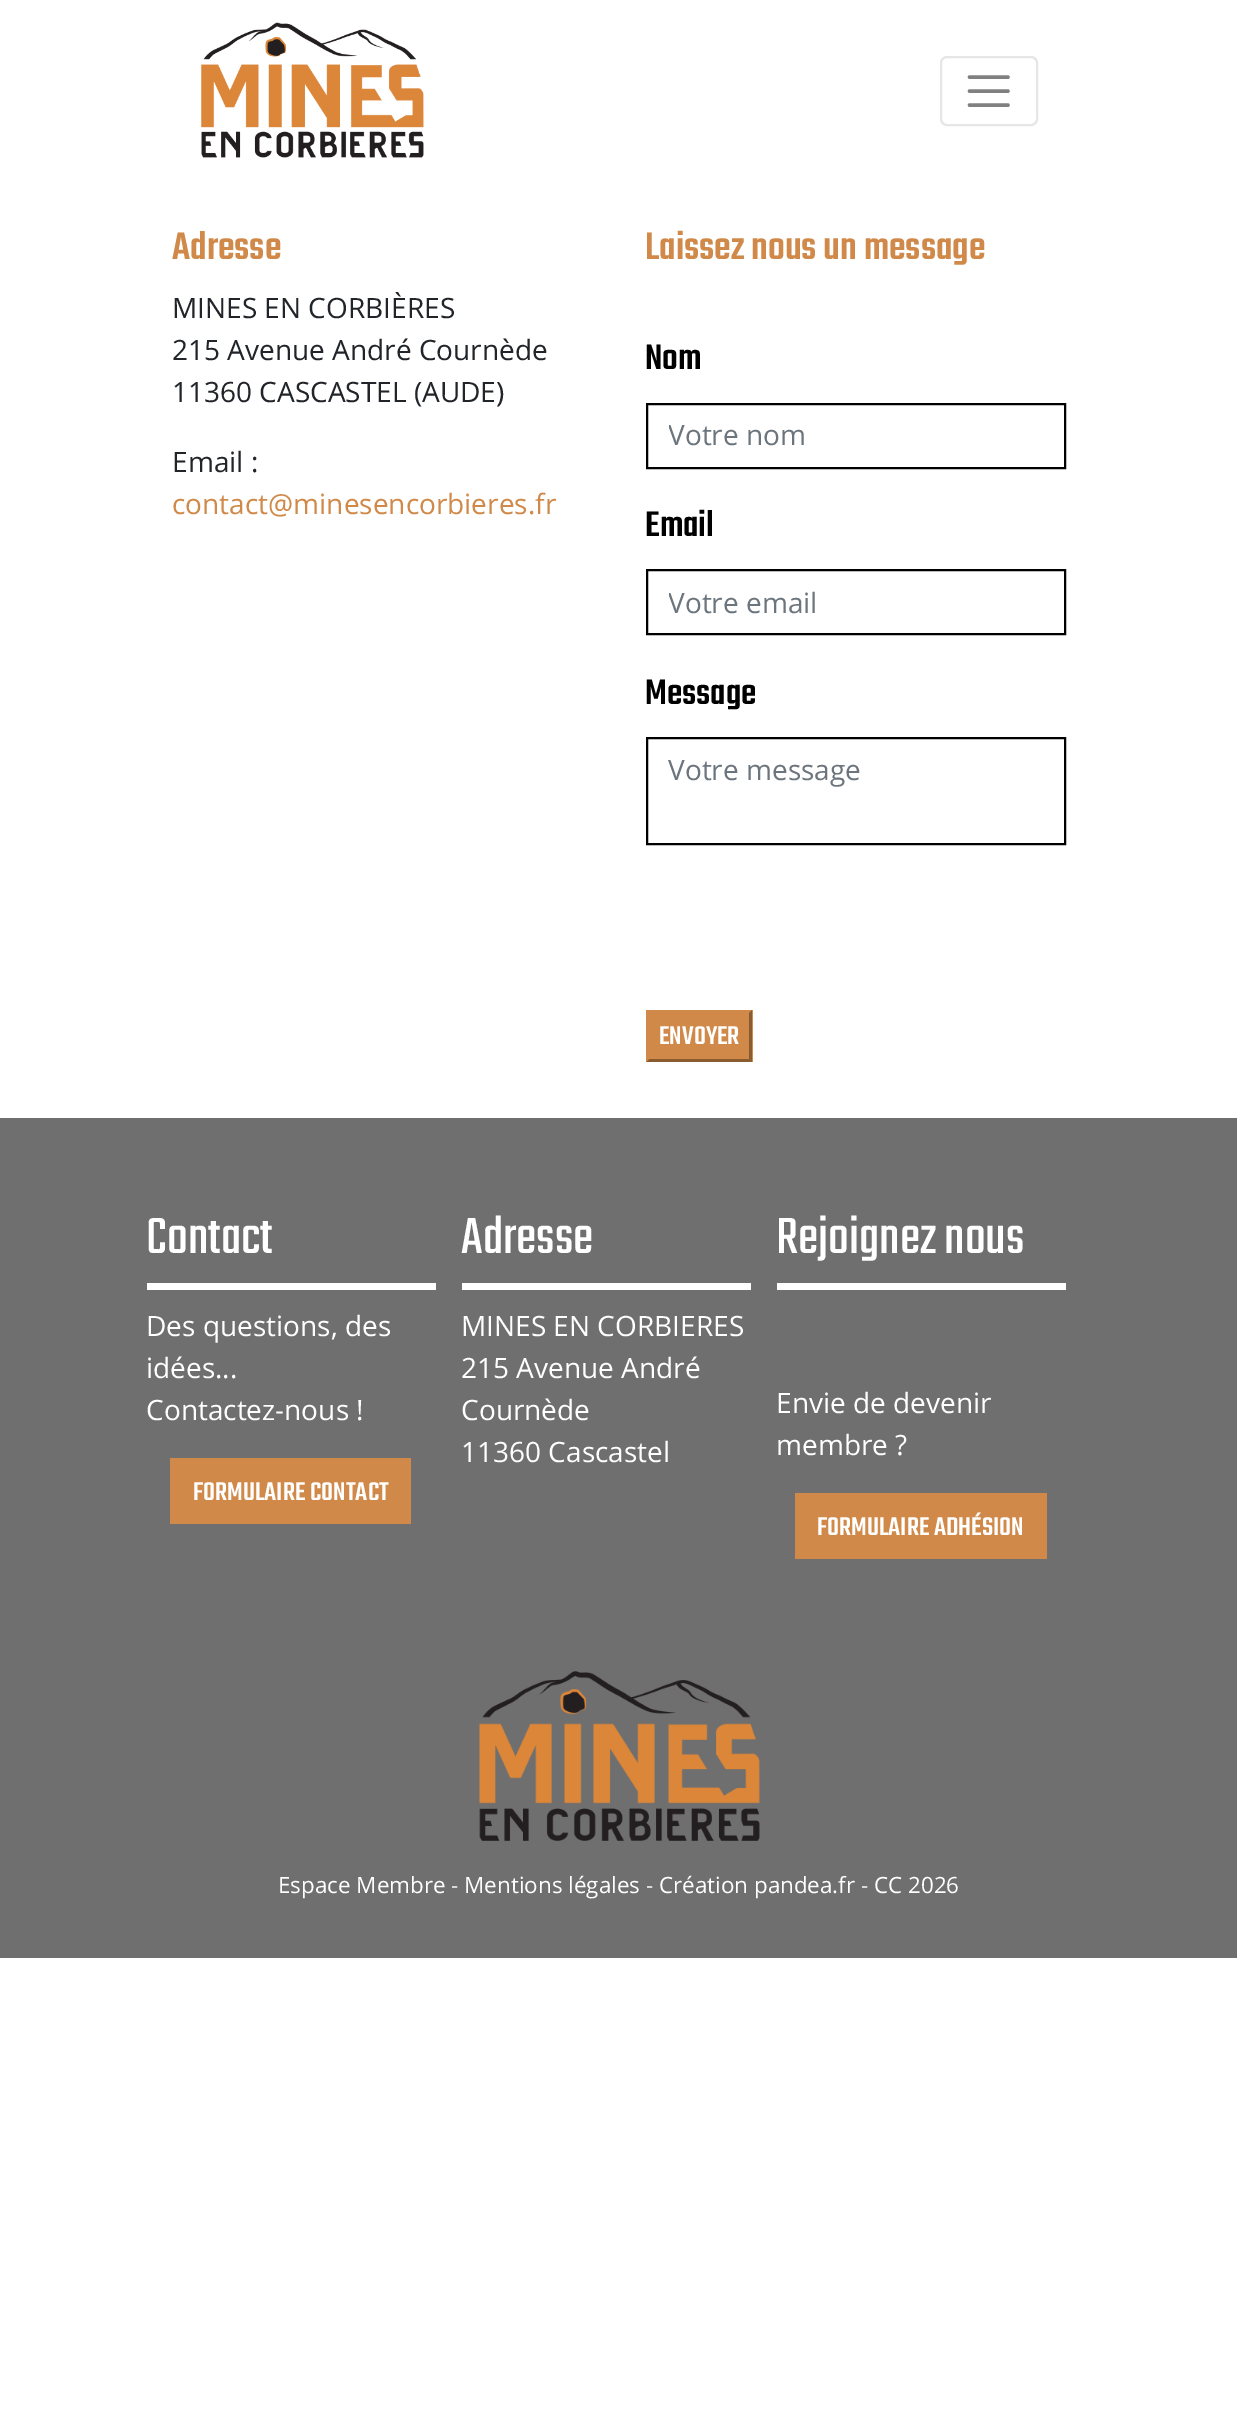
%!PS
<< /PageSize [1237 2421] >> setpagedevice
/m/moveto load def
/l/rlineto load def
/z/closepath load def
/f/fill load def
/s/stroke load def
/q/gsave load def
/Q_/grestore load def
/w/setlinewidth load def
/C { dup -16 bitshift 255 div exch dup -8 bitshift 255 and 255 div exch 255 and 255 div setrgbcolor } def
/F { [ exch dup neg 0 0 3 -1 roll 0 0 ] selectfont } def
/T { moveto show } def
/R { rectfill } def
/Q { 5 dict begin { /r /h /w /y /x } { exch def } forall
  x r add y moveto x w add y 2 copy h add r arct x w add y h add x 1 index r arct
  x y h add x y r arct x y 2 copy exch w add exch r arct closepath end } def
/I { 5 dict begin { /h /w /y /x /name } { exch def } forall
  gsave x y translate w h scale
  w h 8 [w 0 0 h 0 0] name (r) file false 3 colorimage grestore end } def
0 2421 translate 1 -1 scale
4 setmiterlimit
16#FFFFFF C
0 0 1237 2421 R
(1.rgb) 201 22 223 136 I
16#E6E6E6 C
2 w
941 57 96 68 6 Q s
16#808080 C
3.5 w
1 setlinecap
969.5 77 m 38.5 0 l 969.5 91 m 38.5 0 l 969.5 105 m 38.5 0 l s
/Teko-Medium 42 F
16#D08948 C
(Adresse) 172 259 T
/OpenSans-Regular 28 F
16#212529 C
(MINES EN CORBIÈRES) 172 318 T
(215 Avenue André Cournède) 172 360 T
(11360 CASCASTEL \(AUDE\)) 172 402 T
(Email :) 172 472 T
16#D08948 C
(contact@minesencorbieres.fr) 172 514 T
/Teko-Medium 42 F
(Laissez nous un message) 645 259 T
/Teko-Medium 39 F
16#000000 C
(Nom) 645 369 T
2 w
0 setlinecap
647 404 418 64 rectstroke
q
669 417 374 38 rectclip
/OpenSans-Regular 28 F
16#6C757D C
(Votre nom) 668 445 T
Q_
(Email) 645 536 T
647 570 418 64 rectstroke
q
669 583 374 38 rectclip
/OpenSans-Regular 28 F
16#6C757D C
(Votre email) 668 613 T
Q_
(Message) 645 704 T
647 738 418 106 rectstroke
/OpenSans-Regular 28 F
16#6C757D C
(Votre message) 668 780 T
16#D08948 C
646 1010 107 52 R
16#8B5B30 C
752 1010 m 0 52 l -3 -3 l 0 -46 l z f
752 1062 m -106 0 l 3 -3 l 100 0 l z f
16#D08948 C
646 1062 m 0 -52 l 3 3 l 0 46 l z f
/Teko-Medium 28 F
16#FFFFFF C
(ENVOYER) 659 1044 T
16#706F6F C
0 1118 1237 840 R
16#FFFFFF C
147 1283 289 7 R
/Teko-Regular 56 F
(Contact) 146 1253 T
/OpenSans-Regular 28 F
(Des questions, des) 146 1336 T
(idées...) 146 1378 T
(Contactez-nous !) 146 1420 T
16#D08948 C
170 1458 241 66 R
/Teko-Medium 28 F
16#FFFFFF C
(FORMULAIRE CONTACT) 193 1500 T
462 1283 289 7 R
/Teko-Regular 56 F
(Adresse) 461 1253 T
/OpenSans-Regular 28 F
(MINES EN CORBIERES) 461 1336 T
(215 Avenue André) 461 1378 T
(Cournède) 461 1420 T
(11360 Cascastel) 461 1462 T
777 1283 289 7 R
/Teko-Regular 56 F
(Rejoignez nous) 776 1253 T
/OpenSans-Regular 28 F
(Envie de devenir) 776 1413 T
(membre ?) 776 1455 T
16#D08948 C
795 1493 252 66 R
/Teko-Medium 28 F
16#FFFFFF C
(FORMULAIRE ADHÉSION) 817 1535 T
(2.rgb) 479 1671 281 170 I
/OpenSans-Regular 22.4 F
(Espace Membre - Mentions légales - Création pandea.fr - CC 2026) 278 1893 T
showpage
